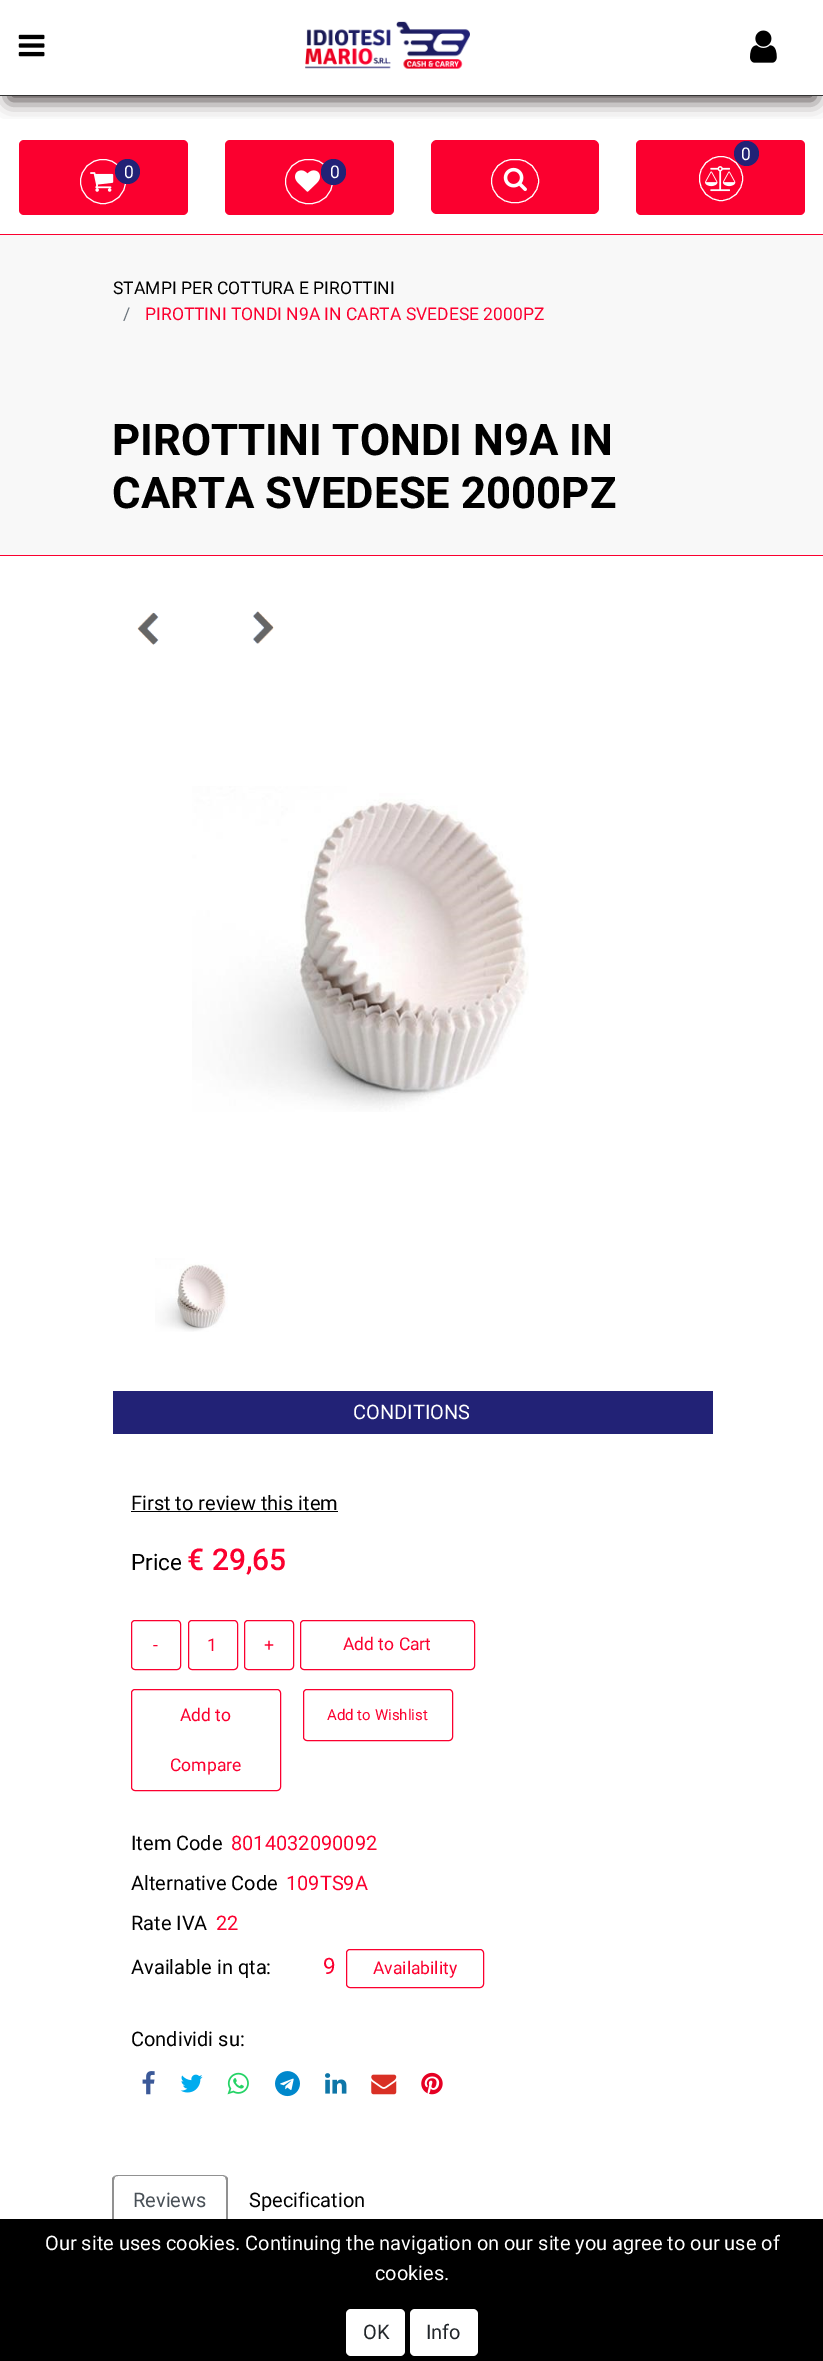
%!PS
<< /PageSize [823 2361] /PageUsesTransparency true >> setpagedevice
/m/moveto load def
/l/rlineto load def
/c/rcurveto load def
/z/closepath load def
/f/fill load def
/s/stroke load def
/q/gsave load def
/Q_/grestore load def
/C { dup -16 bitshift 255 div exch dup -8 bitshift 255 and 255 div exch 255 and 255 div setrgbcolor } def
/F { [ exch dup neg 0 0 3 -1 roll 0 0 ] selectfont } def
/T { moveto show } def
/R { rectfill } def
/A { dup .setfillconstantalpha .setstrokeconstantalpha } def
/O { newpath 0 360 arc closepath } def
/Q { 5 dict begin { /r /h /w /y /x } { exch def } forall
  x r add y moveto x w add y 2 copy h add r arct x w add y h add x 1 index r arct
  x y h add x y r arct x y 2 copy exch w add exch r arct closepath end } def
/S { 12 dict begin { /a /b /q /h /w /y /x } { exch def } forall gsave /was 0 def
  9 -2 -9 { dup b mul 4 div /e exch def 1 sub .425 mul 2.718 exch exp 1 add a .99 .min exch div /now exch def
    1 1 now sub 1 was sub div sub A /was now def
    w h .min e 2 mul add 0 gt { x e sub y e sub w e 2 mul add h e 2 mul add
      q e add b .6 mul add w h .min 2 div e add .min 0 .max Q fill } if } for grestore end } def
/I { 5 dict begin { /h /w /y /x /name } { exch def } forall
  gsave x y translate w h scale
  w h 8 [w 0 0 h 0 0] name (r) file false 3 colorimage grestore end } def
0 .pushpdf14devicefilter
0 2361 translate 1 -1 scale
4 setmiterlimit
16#FFFFFF C
0 0 823 2361 R
q
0 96 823 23 rectclip
16#3F3636 C
9 21 806 79 0 9.5 1 S
Q_
16#333333 C
0 95 823 1 R
(1.rgb) 18 34 27 23 I
(2.rgb) 305 21 165 48 I
(3.rgb) 750 30 27 33 I
16#FB002F C
431 140 168 74 6 Q f
16#FFFFFF C
491.5 159.5 47 43 21.5 Q s
(4.rgb) 503 167 24 25 I
16#FB002F C
636 140 169 75 5 Q f
16#FFFFFF C
699.5 156.5 43 44 21.5 Q s
16#222276 C
746.5 153.5 12.5 O f
/Roboto-Regular 17.5 F
16#FFFFFF C
(0) 741 160 T
(5.rgb) 705 166 31 26 I
16#FB002F C
19 140 169 75 5 Q f
16#FFFFFF C
80.5 159.5 45 44 22 Q s
(6.rgb) 90 172 24 20 I
16#222276 C
127.5 171.5 12.5 O f
16#FFFFFF C
(0) 124 178 T
16#FB002F C
225 140 169 75 5 Q f
16#FFFFFF C
285.5 159.5 47 44 22 Q s
(7.rgb) 295 170 25 22 I
16#222276 C
321 159 25 26 12.5 Q f
16#FFFFFF C
(0) 330 178 T
16#F8F8F8 C
0 235 823 320 R
16#FB002F C
0 234 823 1 R
0 555 823 1 R
16#000000 C
(STAMPI PER COTTURA E PIROTTINI) 113 294 T
16#6C757D C
(/) 123 320 T
16#FB002F C
(PIROTTINI TONDI N9A IN CARTA SVEDESE 2000PZ) 145 320 T
/Roboto-Bold 43.75 F
16#000000 C
(PIROTTINI TONDI N9A IN) 112 455 T
(CARTA SVEDESE 2000PZ) 112 508 T
(8.rgb) 137 612 22 33 I
(9.rgb) 253 611 21 33 I
(10.rgb) 192 786 337 326 I
(11.rgb) 155 1258 73 74 I
16#222276 C
113 1391 600 43 R
/Roboto-Regular 20 F
16#FFFFFF C
(CONDITIONS) 353 1419 T
16#000000 C
(First to review this item) 131 1510 T
131 1511 207 1 R
/Roboto-Regular 22.5 F
(Price) 131 1570 T
/Roboto-Medium 30 F
16#FB002F C
(€ 29,65) 187 1570 T
131.5 1620.5 49 49 3.5 Q s
/Roboto-Regular 17.5 F
(-) 153 1651 T
188.5 1620.5 49 49 3.5 Q s
(1) 207 1651 T
244.5 1620.5 49 49 3.5 Q s
(+) 264 1651 T
300.5 1620.5 174 49 3.5 Q s
(Add to Cart) 343 1650 T
131.5 1689.5 149 101 3.5 Q s
(Add to) 180 1721 T
(Compare) 170 1771 T
303.5 1689.5 149 51 3.5 Q s
/Roboto-Regular 15 F
(Add to Wishlist) 327 1720 T
/Roboto-Regular 20 F
16#000000 C
(Item Code) 131 1850 T
16#FB002F C
(8014032090092) 231 1850 T
16#000000 C
(Alternative Code) 131 1890 T
16#FB002F C
(109TS9A) 286 1890 T
16#000000 C
(Rate IVA) 131 1930 T
16#FB002F C
(22) 216 1930 T
16#000000 C
(Available in qta:) 131 1974 T
/Roboto-Regular 22.5 F
16#FB002F C
(9) 323 1974 T
346.5 1949.5 137 38 3.5 Q s
/Roboto-Regular 17.5 F
(Availability) 373 1974 T
/Roboto-Regular 20 F
16#000000 C
(Condividi su:) 131 2046 T
(12.rgb) 142 2071 13 24 I
(13.rgb) 180 2074 23 19 I
(14.rgb) 227 2072 22 23 I
(15.rgb) 275 2071 25 26 I
(16.rgb) 325 2073 22 21 I
(17.rgb) 371 2074 26 21 I
(18.rgb) 421 2072 22 23 I
16#919191 C
118 2175 m -2 0 -3 1 -4 1 c 1 1 l 1 -1 2 -1 3 -1 c 105 0 l 2 1 l 1 -1 l -1 0 -2 -1 -4 -1 c z f
226 2176 m 2 2 l 0 50 l -2 -2 l 0 -46 l -1 -3 l z f
112 2228 m 0 -50 l 2 -2 l 1 1 l -1 3 l 0 46 l z f
16#495057 C
(Reviews) 133 2207 T
16#000000 C
(Specification) 249 2207 T
0 2219 823 142 R
16#FFFFFF C
(Our site uses cookies. Continuing the navigation on our site you agree to our use of) 45 2250 T
(cookies.) 375 2280 T
346 2309 59 47 5 Q f
16#212529 C
(OK) 363 2339 T
16#FFFFFF C
410 2309 68 47 5 Q f
16#212529 C
(Info) 426 2339 T
.poppdf14devicefilter showpage
